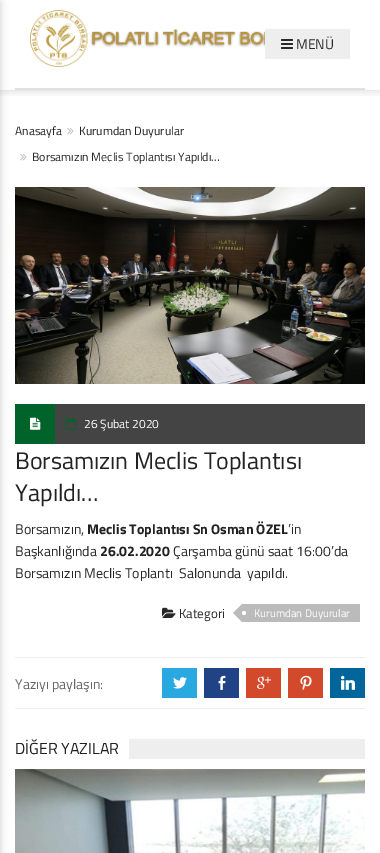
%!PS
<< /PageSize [380 853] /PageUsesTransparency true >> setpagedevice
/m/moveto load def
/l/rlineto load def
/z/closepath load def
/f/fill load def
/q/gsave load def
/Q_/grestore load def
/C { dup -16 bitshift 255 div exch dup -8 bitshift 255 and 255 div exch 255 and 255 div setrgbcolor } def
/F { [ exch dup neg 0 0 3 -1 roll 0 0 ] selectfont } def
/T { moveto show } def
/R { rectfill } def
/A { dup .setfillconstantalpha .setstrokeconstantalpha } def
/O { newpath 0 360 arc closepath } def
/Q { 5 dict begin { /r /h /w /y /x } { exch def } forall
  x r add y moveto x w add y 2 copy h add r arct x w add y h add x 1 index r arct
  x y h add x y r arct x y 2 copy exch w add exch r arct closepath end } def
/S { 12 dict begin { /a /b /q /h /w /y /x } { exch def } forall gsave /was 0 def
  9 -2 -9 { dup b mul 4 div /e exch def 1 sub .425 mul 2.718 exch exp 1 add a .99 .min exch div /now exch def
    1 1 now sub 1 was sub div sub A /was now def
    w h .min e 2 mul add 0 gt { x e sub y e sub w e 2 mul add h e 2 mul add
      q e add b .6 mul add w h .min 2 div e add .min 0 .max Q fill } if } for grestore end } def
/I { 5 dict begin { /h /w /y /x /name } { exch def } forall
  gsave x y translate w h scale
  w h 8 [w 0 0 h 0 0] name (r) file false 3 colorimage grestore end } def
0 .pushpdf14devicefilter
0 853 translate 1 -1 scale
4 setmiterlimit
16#FFFFFF C
0 0 380 853 R
16#000000 C
-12 2 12 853 0 4 .2 S
q
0 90 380 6 rectclip
16#222222 C
0 0 380 90 0 5 .2 S
Q_
(1.rgb) 30 10 235 57 I
16#E2E2E2 C
15 88 350 1 R
16#E0DDDD C
15 89 350 1 R
16#EEEEEE C
265 29 85 30 R
(2.rgb) 281 39 12 10 I
/TitilliumWeb-Regular 14 F
16#282828 C
(MENÜ) 296 49 T
/TitilliumWeb-Regular 12 F
16#222222 C
(Anasayfa) 15 135 T
(3.rgb) 67 127 7 8 I
(Kurumdan Duyurular) 79 135 T
(3.rgb) 20 153 7 8 I
16#282828 C
(Borsamızın Meclis Toplantısı Yapıldı…) 32 161 T
(4.rgb) 15 187 350 197 I
16#444444 C
55 404 310 40 R
16#006329 C
15 404 40 40 R
(5.rgb) 30 417 11 13 I
(6.rgb) 65 417 12 13 I
16#FFFFFF C
(26 Şubat 2020) 84 428 T
/TitilliumWeb-Regular 24 F
16#222222 C
(Borsamızın Meclis Toplantısı) 15 469 T
(Yapıldı…) 15 501 T
/TitilliumWeb-Regular 14 F
16#282828 C
(Borsamızın,) 15 534 T
/TitilliumWeb-Bold 14 F
16#222222 C
(Meclis Toplantısı Sn Osman ÖZEL) 87 534 T
/TitilliumWeb-Regular 14 F
16#282828 C
(’in) 288 534 T
(Başkanlığında) 15 556 T
/TitilliumWeb-Bold 14 F
16#222222 C
(26.02.2020) 100 556 T
/TitilliumWeb-Regular 14 F
16#282828 C
(Çarşamba günü saat 16:00’da) 173 556 T
(Borsamızın Meclis Toplantı  Salonunda  yapıldı.) 15 578 T
(7.rgb) 162 607 14 11 I
/TitilliumWeb-Regular 13 F
(Kategori) 179 618 T
16#BBBBBB C
242 604 118 18 R
242 604 m 0 18 l -9 -9 l z f
16#FFFFFF C
244 613 2 O f
/TitilliumWeb-Regular 11 F
(Kurumdan Duyurular) 254 617 T
16#EEEEEE C
15 657 350 1 R
15 708 350 1 R
/TitilliumWeb-Regular 14 F
16#666666 C
(Yazıyı paylaşın:) 15 689 T
16#2AA9E0 C
162 668 35 30 R
(8.rgb) 173 677 14 12 I
16#204385 C
204 668 35 30 R
(9.rgb) 218 675 8 15 I
16#D3492C C
246 668 35 30 R
(10.rgb) 257 676 14 13 I
288 668 35 30 R
(11.rgb) 300 675 12 15 I
16#02669A C
330 668 35 30 R
(12.rgb) 341 675 14 15 I
16#EEEEEE C
129 739 236 20 R
/TitilliumWeb-Regular 16 F
16#222222 C
(DİĞER YAZILAR) 15 754 T
(13.rgb) 15 769 350 84 I
.poppdf14devicefilter showpage
